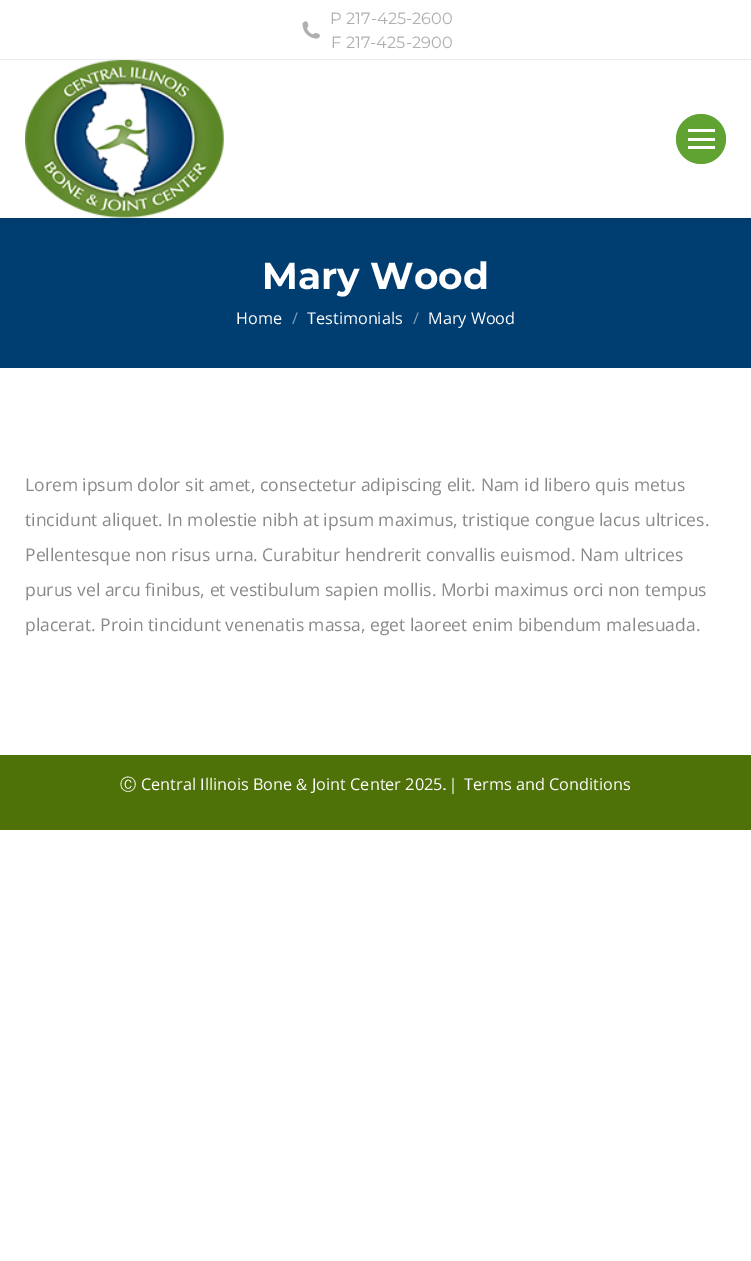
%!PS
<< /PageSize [751 1261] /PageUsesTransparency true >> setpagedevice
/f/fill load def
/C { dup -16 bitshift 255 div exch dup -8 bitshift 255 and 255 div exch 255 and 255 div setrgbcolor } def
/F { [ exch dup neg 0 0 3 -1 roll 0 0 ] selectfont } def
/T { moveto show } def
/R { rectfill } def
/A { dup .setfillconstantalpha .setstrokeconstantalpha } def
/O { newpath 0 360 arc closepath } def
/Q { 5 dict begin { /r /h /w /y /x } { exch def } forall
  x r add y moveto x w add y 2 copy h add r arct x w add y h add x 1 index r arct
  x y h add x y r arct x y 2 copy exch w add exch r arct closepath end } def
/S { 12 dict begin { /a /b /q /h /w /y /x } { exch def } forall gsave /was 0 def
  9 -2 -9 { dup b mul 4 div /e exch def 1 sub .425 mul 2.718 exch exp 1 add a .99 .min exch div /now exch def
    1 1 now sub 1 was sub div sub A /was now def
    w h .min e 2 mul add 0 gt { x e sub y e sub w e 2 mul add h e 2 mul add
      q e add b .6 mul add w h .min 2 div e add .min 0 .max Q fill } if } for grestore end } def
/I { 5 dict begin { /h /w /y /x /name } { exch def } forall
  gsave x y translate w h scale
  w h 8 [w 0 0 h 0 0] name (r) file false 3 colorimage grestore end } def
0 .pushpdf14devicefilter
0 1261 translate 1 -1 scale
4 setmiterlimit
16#FFFFFF C
0 0 751 1261 R
16#003D70 C
0 218 751 150 R
16#000000 C
-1 -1 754 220 0 9.5 .07 S
16#FFFFFF C
0 0 751 218 R
/Montserrat-Regular 16.25 F
16#AFAFAF C
(P 217-425-2600) 330 24 T
(1.rgb) 302 21 18 18 I
(F 217-425-2900) 331 48 T
16#EDEDED C
0 59 751 1 R
(2.rgb) 25 60 199 158 I
16#61A332 C
701 139 25 O f
16#FFFFFF C
688 129 27 3 R
688 138 27 3 R
688 146 27 3 R
/Montserrat-Bold 37.5 F
(Mary Wood) 262 289 T
/OpenSans-Regular 16.25 F
(Home) 236 324 T
16#809EB8 C
(/) 292 324 T
16#FFFFFF C
(Testimonials) 307 324 T
16#809EB8 C
(/) 413 324 T
16#FFFFFF C
(Mary Wood) 428 324 T
/OpenSans-Regular 17.5 F
16#898989 C
(Lorem ipsum dolor sit amet, consectetur adipiscing elit. Nam id libero quis metus) 25 491 T
(tincidunt aliquet. In molestie nibh at ipsum maximus, tristique congue lacus ultrices.) 25 526 T
(Pellentesque non risus urna. Curabitur hendrerit convallis euismod. Nam ultrices) 25 561 T
(purus vel arcu finibus, et vestibulum sapien mollis. Morbi maximus orci non tempus) 25 596 T
(placerat. Proin tincidunt venenatis massa, eget laoreet enim bibendum malesuada.) 25 631 T
16#4F7208 C
0 755 751 75 R
/WenQuanYiZenHei-Medium 16.25 F
16#FFFFFF C
(Ⓒ) 120 790 T
/OpenSans-Regular 16.25 F
(Central Illinois Bone) 141 790 T
/WenQuanYiZenHei-Medium 16.25 F
(&) 296 790 T
/OpenSans-Regular 16.25 F
(Joint Center 2025) 312 790 T
/WenQuanYiZenHei-Medium 16.25 F
(.) 442 790 T
(|) 451 790 T
/OpenSans-Regular 16.25 F
(Terms and Conditions) 464 790 T
.poppdf14devicefilter showpage
